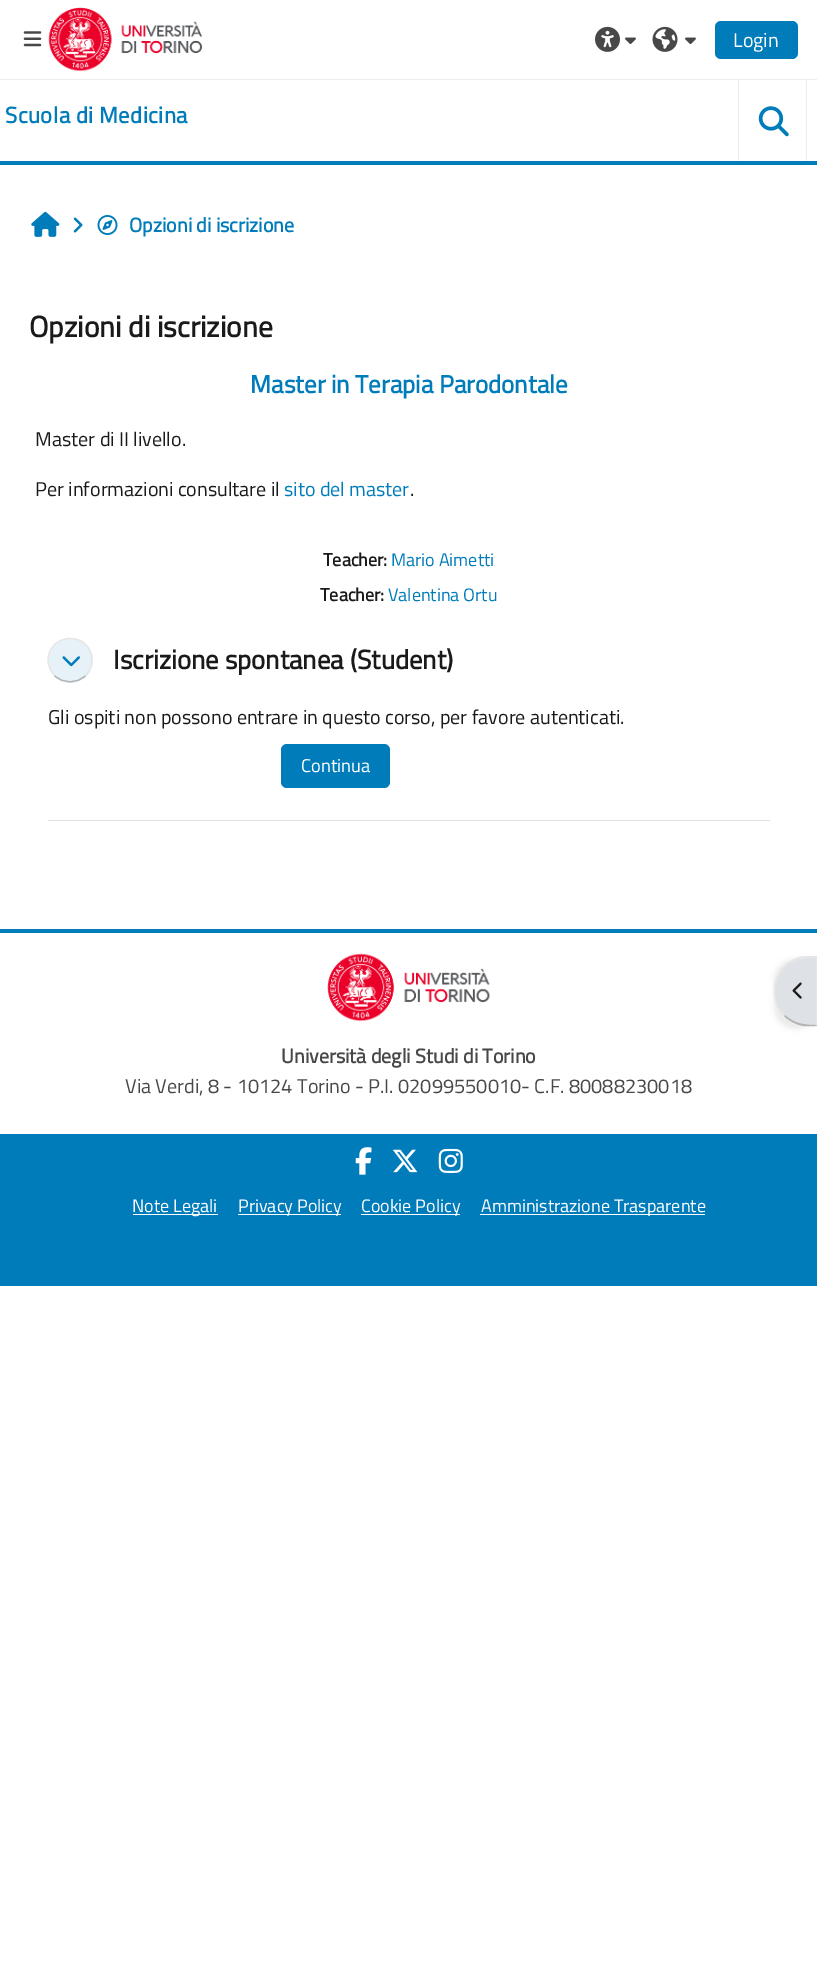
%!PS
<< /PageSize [817 1980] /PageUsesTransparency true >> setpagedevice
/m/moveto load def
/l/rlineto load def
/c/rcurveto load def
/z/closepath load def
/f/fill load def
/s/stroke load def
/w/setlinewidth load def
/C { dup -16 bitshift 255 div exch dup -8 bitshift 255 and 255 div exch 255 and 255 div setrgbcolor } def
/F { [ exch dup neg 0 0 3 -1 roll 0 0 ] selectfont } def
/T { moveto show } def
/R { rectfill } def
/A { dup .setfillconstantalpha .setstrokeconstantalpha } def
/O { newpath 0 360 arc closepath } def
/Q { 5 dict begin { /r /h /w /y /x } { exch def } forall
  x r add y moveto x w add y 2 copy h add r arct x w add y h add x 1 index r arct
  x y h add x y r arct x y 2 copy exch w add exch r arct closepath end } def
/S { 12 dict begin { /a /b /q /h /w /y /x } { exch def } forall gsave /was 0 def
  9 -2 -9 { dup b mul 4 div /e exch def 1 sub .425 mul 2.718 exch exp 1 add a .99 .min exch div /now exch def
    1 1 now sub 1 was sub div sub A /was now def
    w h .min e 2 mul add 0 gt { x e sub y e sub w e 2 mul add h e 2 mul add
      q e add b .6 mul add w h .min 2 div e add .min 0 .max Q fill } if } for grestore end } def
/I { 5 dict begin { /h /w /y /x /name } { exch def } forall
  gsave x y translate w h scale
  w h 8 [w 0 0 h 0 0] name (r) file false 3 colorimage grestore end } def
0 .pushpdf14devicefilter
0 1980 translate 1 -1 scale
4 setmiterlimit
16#FFFFFF C
0 0 817 1980 R
16#007CBA C
0 161 817 4 R
16#ECECEC C
0 79 817 1 R
(1.rgb) 23 31 19 16 I
(2.rgb) 48 7 154 65 I
(3.rgb) 595 26 25 26 I
(4.rgb) 625 37 11 7 I
(5.rgb) 652 26 26 26 I
(4.rgb) 685 37 11 7 I
16#007CBA C
715 21 83 38 6 Q f
/TitilliumWeb-Regular 20 F
16#FFFFFF C
(Login) 733 47 T
/TitilliumWeb-Bold 22.5 F
16#007CBA C
5 123 m .5 0 (Scuola di Medicina) ashow
16#ECECEC C
806 80 1 81 R
738 80 1 81 R
(6.rgb) 758 106 31 31 I
(7.rgb) 31 211 29 26 I
(8.rgb) 73 217 10 16 I
(9.rgb) 97 215 21 20 I
/TitilliumWeb-Bold 20 F
16#007CBA C
(Opzioni di iscrizione) 129 232 T
/TitilliumWeb-Bold 29.5 F
16#1A1A1A C
(Opzioni di iscrizione) 29 337 T
/TitilliumWeb-Bold 25 F
16#007CBA C
(Master in Terapia Parodontale) 250 393 T
/TitilliumWeb-Regular 20 F
16#1A1A1A C
(Master di II livello.) 35 446 T
(Per informazioni consultare il) 35 496 T
16#007CBA C
(sito del master) 284 496 T
16#1A1A1A C
(.) 410 496 T
/TitilliumWeb-Bold 18 F
(Teacher:) 323 566 T
/TitilliumWeb-Regular 18 F
16#007CBA C
(Mario Aimetti) 391 566 T
/TitilliumWeb-Bold 18 F
16#1A1A1A C
(Teacher:) 320 601 T
/TitilliumWeb-Regular 18 F
16#007CBA C
(Valentina Ortu) 388 601 T
16#DEE2E6 C
48 820 722 1 R
16#E6F2F8 C
70.5 660.5 22.5 O f
16#B3B3B3 C
1.2 w
85.5 675.5 m -8.5 8.5 -22.5 8.5 -31 0 c s
16#E6E6E6 C
54.5 675.5 m -4 -4 -6.5 -9.5 -6.5 -15.5 c 0 -26 38.5 -30 43.5 -4.5 c 1.5 7.5 -1 15 -6 20 c s
(10.rgb) 62 656 18 11 I
/TitilliumWeb-Bold 26.75 F
16#1A1A1A C
(Iscrizione spontanea \(Student\)) 113 669 T
/TitilliumWeb-Regular 20 F
(Gli ospiti non possono entrare in questo corso, per favore autenticati.) 48 724 T
16#007CBA C
281 744 109 44 6 Q f
/TitilliumWeb-Regular 18.5 F
16#FFFFFF C
(Continua) 301 772 T
16#000000 C
774 959 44 70 35 2.5 .07 S
16#DEE2E6 C
809 956 m 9 0 l 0 70 l -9 0 l -19.5 0 -35 -15.5 -35 -35 c 0 -19.5 15.5 -35 35 -35 c z f
16#E6E6E6 C
809 958 m -10 0 -18.5 4 -24 9.5 c -1 -1 l 5 -5.5 12 -9.5 20.5 -10.5 c 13 0 l -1.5 2 l z f
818 956 m 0 70 l -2 -1 l 0 -67 l z f
16#B3B3B3 C
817.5 1026 m -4.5 0 -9 .5 -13.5 0 c -7 -1 -15 -5 -20 -10 c 1 -1 l 9 8.5 19 10 31 10 c z f
16#E6E6E6 C
784 1016 m -14 -13 -13 -36 0 -50 c 1 2 l -12 12 -14 34 0 47 c z f
(11.rgb) 792 982 10 17 I
16#007CBA C
0 929 817 4 R
(12.rgb) 327 953 163 69 I
/TitilliumWeb-Bold 20 F
16#484848 C
(Università degli Studi di Torino) 281 1063 T
/TitilliumWeb-Regular 20 F
(Via Verdi, 8 - 10124 Torino - P.I. 02099550010- C.F. 80088230018) 125 1093 T
16#007CBA C
0 1134 817 152 R
(13.rgb) 355 1147 17 28 I
(14.rgb) 392 1149 26 24 I
(15.rgb) 438 1148 25 25 I
16#FFFFFF C
133 1214 85 1 R
/TitilliumWeb-Regular 18 F
(Note Legali) 132 1212 T
238 1214 103 1 R
(Privacy Policy) 238 1212 T
361 1214 99 1 R
(Cookie Policy) 361 1212 T
480 1214 225 1 R
(Amministrazione Trasparente) 481 1212 T
.poppdf14devicefilter showpage
